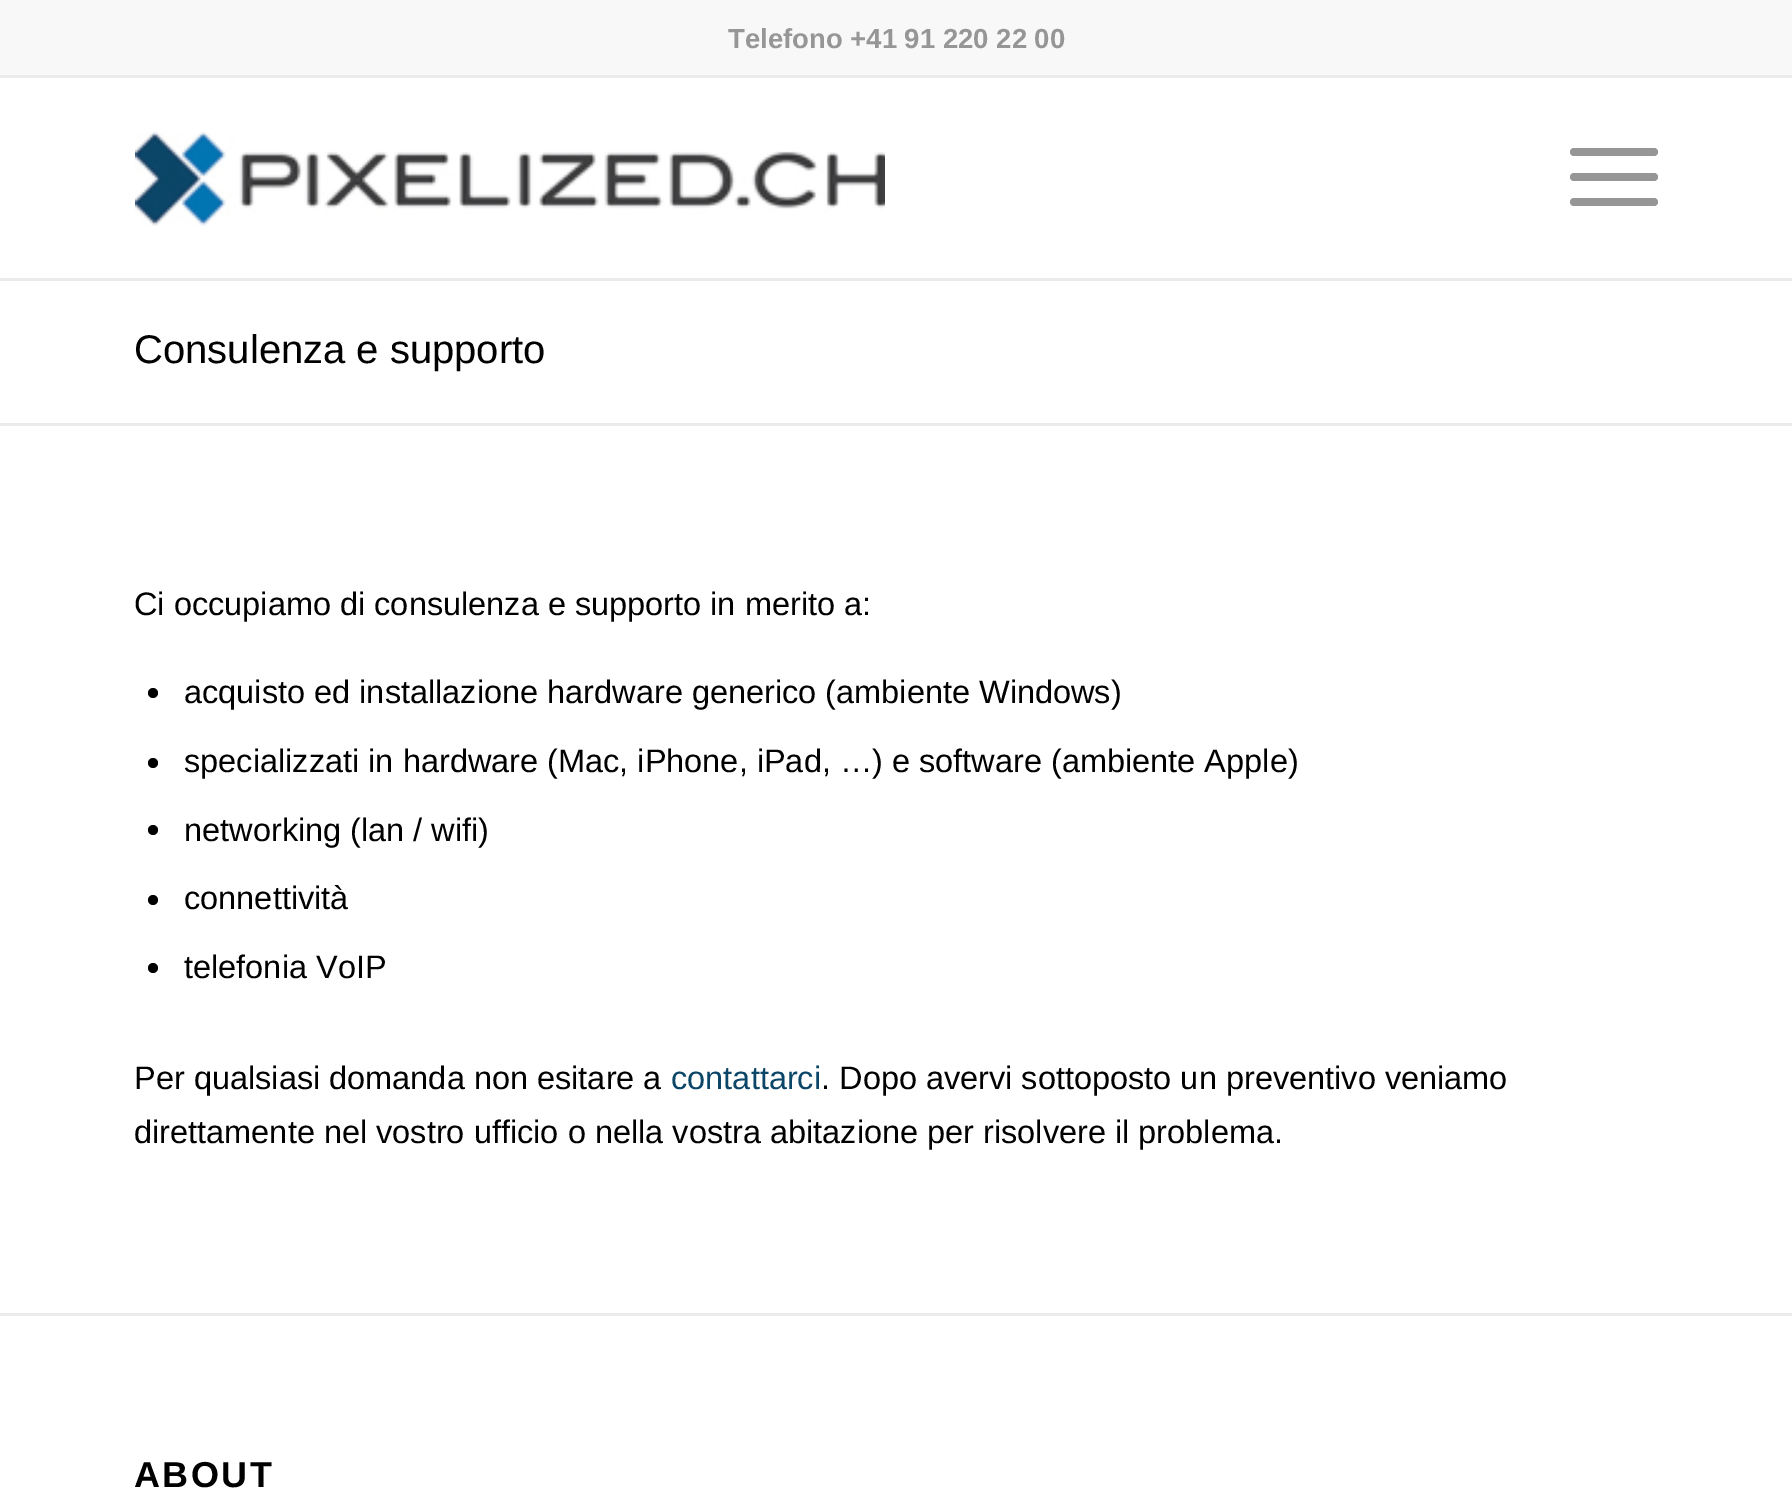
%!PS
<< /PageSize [1792 1494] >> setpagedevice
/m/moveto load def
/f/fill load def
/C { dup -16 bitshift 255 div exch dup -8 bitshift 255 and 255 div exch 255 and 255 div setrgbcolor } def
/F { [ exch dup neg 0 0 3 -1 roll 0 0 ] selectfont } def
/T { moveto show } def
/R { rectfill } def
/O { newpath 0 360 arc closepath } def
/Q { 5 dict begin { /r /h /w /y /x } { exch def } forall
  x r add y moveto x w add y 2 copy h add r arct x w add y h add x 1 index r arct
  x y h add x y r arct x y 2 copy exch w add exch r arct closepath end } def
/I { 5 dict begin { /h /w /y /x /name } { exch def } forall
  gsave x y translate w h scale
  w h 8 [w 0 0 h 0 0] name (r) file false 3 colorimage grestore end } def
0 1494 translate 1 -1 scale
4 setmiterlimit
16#FFFFFF C
0 0 1792 1494 R
16#F8F8F8 C
0 0 1792 75 R
16#EBEBEB C
0 75 1792 3 R
/LiberationSans-Bold 27.5 F
16#969696 C
(Telefono +41 91 220 22 00) 728 48 T
16#EBEBEB C
0 278 1792 3 R
(1.rgb) 135 132 750 94 I
16#969696 C
1570 173 88 8 4 Q f
1570 148 88 8 4 Q f
1570 198 88 8 4 Q f
/LiberationSans-Regular 40 F
16#000000 C
(Consulenza e supporto) 134 363 T
16#EBEBEB C
0 423 1792 3 R
/LiberationSans-Regular 32.5 F
16#000000 C
(Ci occupiamo di consulenza e supporto in merito a:) 134 615 T
153 693 5 O f
(acquisto ed installazione hardware generico \(ambiente Windows\)) 184 703 T
153 763 5 O f
(specializzati in hardware \(Mac, iPhone, iPad, …\) e software \(ambiente Apple\)) 184 772 T
153 830 5 O f
(networking \(lan / wifi\)) 184 841 T
153 900 5 O f
(connettività) 184 909 T
153 968 5 O f
(telefonia VoIP) 184 978 T
(Per qualsiasi domanda non esitare a) 134 1089 T
16#0B4567 C
(contattarci) 671 1089 T
16#000000 C
(. Dopo avervi sottoposto un preventivo veniamo) 821 1089 T
(direttamente nel vostro ufficio o nella vostra abitazione per risolvere il problema.) 134 1143 T
16#EBEBEB C
0 1313 1792 3 R
/LiberationSans-Bold 36 F
16#000000 C
134 1487 m 2.5 0 (ABOUT) ashow
showpage
